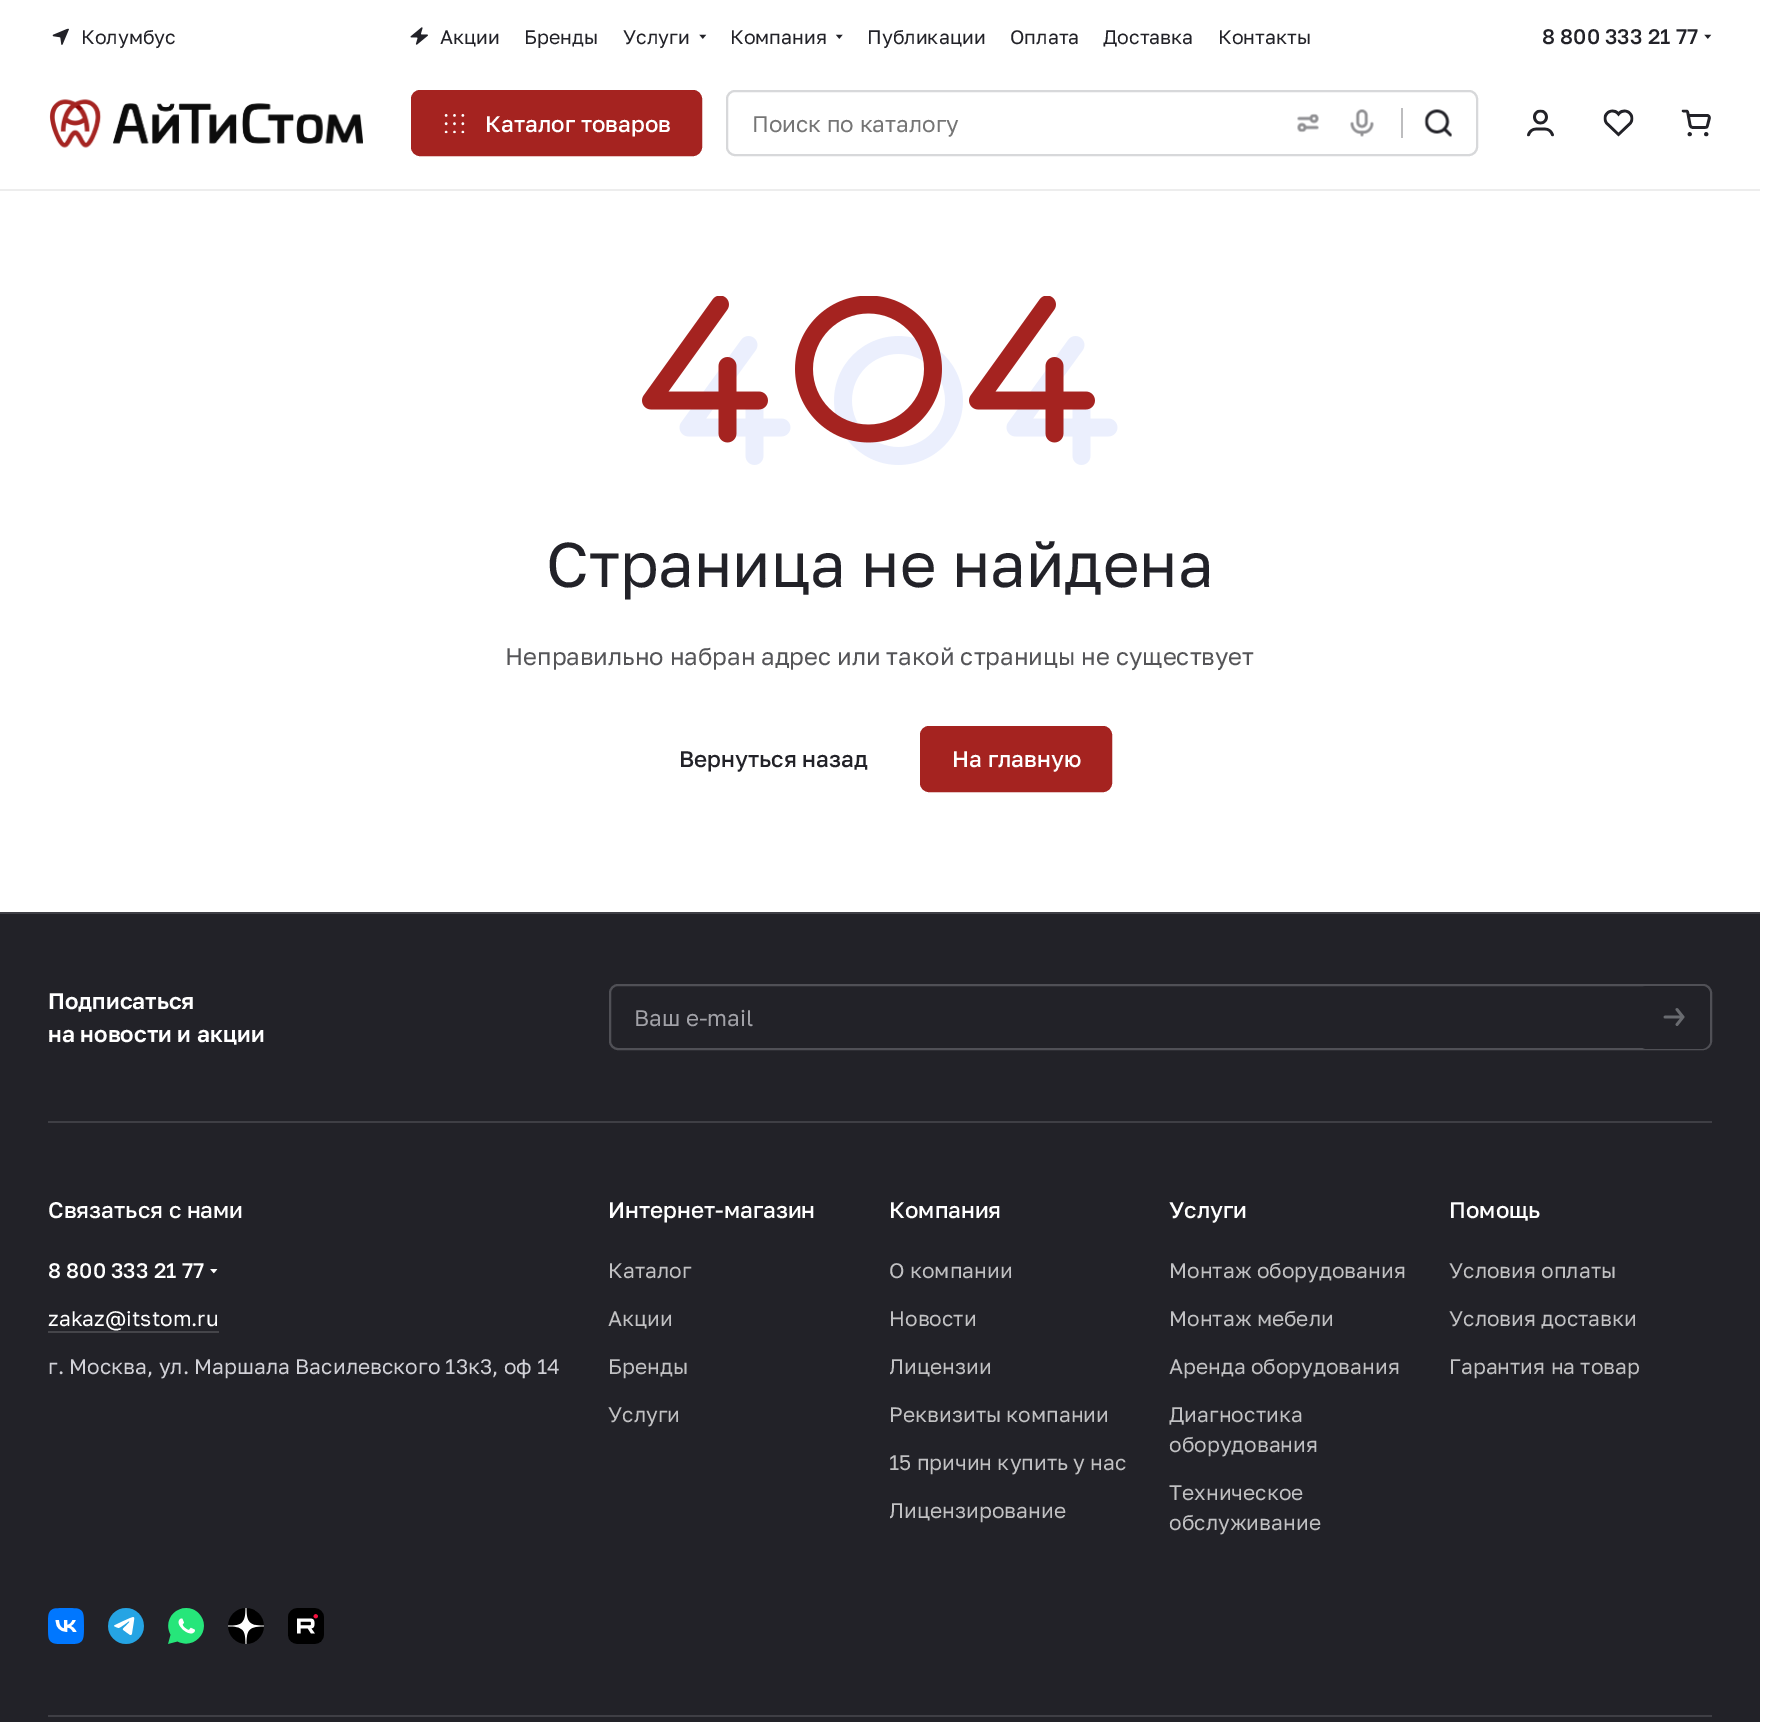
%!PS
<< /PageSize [1768 1722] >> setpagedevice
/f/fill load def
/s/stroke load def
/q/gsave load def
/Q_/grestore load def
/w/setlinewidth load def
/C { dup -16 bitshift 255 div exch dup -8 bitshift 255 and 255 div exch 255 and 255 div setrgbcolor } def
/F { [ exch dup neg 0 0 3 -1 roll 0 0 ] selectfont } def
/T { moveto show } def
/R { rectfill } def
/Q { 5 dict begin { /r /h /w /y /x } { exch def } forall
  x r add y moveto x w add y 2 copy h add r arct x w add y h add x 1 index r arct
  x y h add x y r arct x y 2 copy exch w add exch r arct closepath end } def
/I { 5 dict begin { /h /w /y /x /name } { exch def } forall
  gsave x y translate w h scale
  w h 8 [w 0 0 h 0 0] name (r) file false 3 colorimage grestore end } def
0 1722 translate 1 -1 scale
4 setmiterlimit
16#FFFFFF C
0 0 1768 1722 R
16#EDEDED C
0 189 1760 2 R
(1.rgb) 52 28 17 17 I
/GolosText-Regular 19.5 F
16#222228 C
(Колумбус) 81 44 T
(2.rgb) 410 27 18 18 I
(Акции) 440 44 T
(Бренды) 524 44 T
(Услуги) 623 44 T
(3.rgb) 699 34 8 5 I
(Компания) 730 44 T
(4.rgb) 835 34 8 5 I
(Публикации) 867 44 T
(Оплата) 1010 44 T
(Доставка) 1103 44 T
(Контакты) 1218 44 T
/GolosText-Medium 21 F
(8 800 333 21 77) 1542 44 T
(3.rgb) 1704 34 8 5 I
(5.rgb) 49 99 314 49 I
16#A52320 C
412 91 289 64 8 Q q f Q_
2 w
s
(6.rgb) 444 114 21 20 I
/GolosText-Medium 22.5 F
16#FFFFFF C
(Каталог товаров) 485 132 T
16#D7D8DA C
727 91 750 64 8 Q s
/GolosText-Regular 22.5 F
16#757575 C
(Поиск по каталогу) 752 132 T
(7.rgb) 1297 113 22 20 I
(8.rgb) 1350 109 24 28 I
16#BDBDBF C
1401 108 2 30 R
(9.rgb) 1424 109 28 28 I
(10.rgb) 1527 109 27 28 I
(11.rgb) 1603 109 31 28 I
(12.rgb) 1681 109 30 28 I
(13.rgb) 642 296 476 169 I
/GolosText-Regular 63 F
16#222228 C
(Страница не найдена) 546 587 T
/GolosText-Regular 24 F
16#555558 C
(Неправильно набран адрес или такой страницы не существует) 505 665 T
/GolosText-Medium 22.5 F
16#222228 C
(Вернуться назад) 679 767 T
16#A52320 C
921 727 190 64 8 Q q f Q_
s
16#FFFFFF C
(На главную) 952 767 T
16#222228 C
0 914 1760 808 R
16#3F3F45 C
0 912 1760 2 R
48 1121 1664 2 R
/GolosText-SemiBold 22.5 F
16#FFFFFF C
(Подписаться) 48 1009 T
(на новости и акции) 48 1042 T
16#505056 C
610 985 1101 64 8 Q s
/GolosText-Regular 22.5 F
16#A1A1A7 C
(Ваш e-mail) 634 1026 T
16#222228 C
1638 986 72 63 9 Q f
(14.rgb) 1663 1008 22 18 I
/GolosText-Medium 22.5 F
16#FFFFFF C
(Связаться с нами) 48 1218 T
/GolosText-Medium 21 F
(8 800 333 21 77) 48 1278 T
(15.rgb) 210 1269 8 5 I
/GolosText-Regular 21 F
(zakaz@itstom.ru) 48 1326 T
16#45454A C
48 1331 171 2 R
16#D1D1D7 C
(г. Москва, ул. Маршала Василевского 13к3, оф 14) 48 1374 T
/GolosText-Medium 22.5 F
16#FFFFFF C
(Интернет-магазин) 608 1218 T
/GolosText-Regular 21 F
16#C1C1C3 C
(Каталог) 608 1278 T
(Акции) 608 1326 T
(Бренды) 608 1374 T
(Услуги) 608 1422 T
/GolosText-Medium 22.5 F
16#FFFFFF C
(Компания) 889 1218 T
/GolosText-Regular 21 F
16#C1C1C3 C
(О компании) 889 1278 T
(Новости) 889 1326 T
q
890 1226 261 300 rectclip
(Лицензии) 889 1374 T
Q_
(Реквизиты компании) 889 1422 T
q
890 1226 261 300 rectclip
(15 причин купить у нас) 889 1470 T
(Лицензирование) 889 1518 T
Q_
/GolosText-Medium 22.5 F
16#FFFFFF C
(Услуги) 1169 1218 T
/GolosText-Regular 21 F
16#C1C1C3 C
(Монтаж оборудования) 1169 1278 T
(Монтаж мебели) 1169 1326 T
(Аренда оборудования) 1169 1374 T
(Диагностика) 1169 1422 T
(оборудования) 1169 1452 T
(Техническое) 1169 1500 T
(обслуживание) 1169 1530 T
/GolosText-Medium 22.5 F
16#FFFFFF C
(Помощь) 1449 1218 T
/GolosText-Regular 21 F
16#C1C1C3 C
(Условия оплаты) 1449 1278 T
(Условия доставки) 1449 1326 T
(Гарантия на товар) 1449 1374 T
(16.rgb) 48 1608 36 36 I
(17.rgb) 108 1608 36 36 I
(18.rgb) 168 1608 36 36 I
(19.rgb) 228 1608 36 36 I
(20.rgb) 288 1608 36 36 I
16#3F3F45 C
48 1715 1664 2 R
showpage
